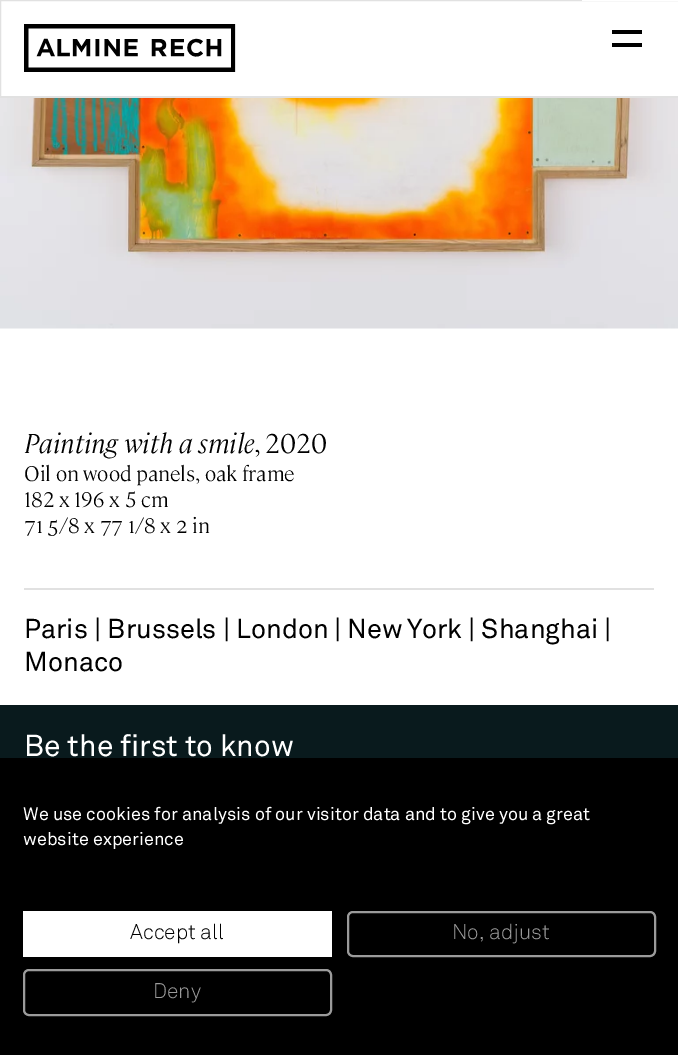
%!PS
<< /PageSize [678 1055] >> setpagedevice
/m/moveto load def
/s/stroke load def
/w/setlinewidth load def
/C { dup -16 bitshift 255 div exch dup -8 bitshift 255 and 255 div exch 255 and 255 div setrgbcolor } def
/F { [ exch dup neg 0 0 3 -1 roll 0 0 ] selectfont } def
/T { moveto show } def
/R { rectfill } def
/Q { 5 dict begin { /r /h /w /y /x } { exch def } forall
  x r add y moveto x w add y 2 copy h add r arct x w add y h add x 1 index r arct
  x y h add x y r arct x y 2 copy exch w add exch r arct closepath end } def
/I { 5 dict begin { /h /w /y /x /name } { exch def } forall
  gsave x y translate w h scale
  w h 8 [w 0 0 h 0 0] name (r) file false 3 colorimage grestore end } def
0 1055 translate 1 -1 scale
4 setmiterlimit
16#FFFFFF C
0 0 678 1055 R
16#E1E1E1 C
2 w
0 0 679 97 rectstroke
(1.rgb) 24 24 212 48 I
16#FFFFFF C
582 0 96 1 R
16#000000 C
612 30 30 4 R
612 43 30 4 R
(2.rgb) 0 98 678 231 I
/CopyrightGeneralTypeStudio-LightItalic 27 F
(Painting with a smile) 24 453 T
/CopyrightGeneralTypeStudio-Light 27 F
(,) 254 453 T
(2020) 265 453 T
/CopyrightGeneralTypeStudio-Light 21 F
24 481 m -.5 0 32 (Oil on wood panels, oak frame) widthshow
(182 x 196 x 5 cm) 24 507 T
/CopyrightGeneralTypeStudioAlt-Light 21 F
(71 5/8 x 77 1/8 x 2 in) 24 533 T
16#E1E1E1 C
24 588 630 2 R
/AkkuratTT-Regular 27 F
16#000000 C
(Paris | Brussels | London) 24 638 T
(|) 334 638 T
347 638 m -2 0 32 (New York) widthshow
(| Shanghai |) 468 638 T
(Monaco) 24 671 T
16#091A1D C
0 705 678 53 R
/AkkuratTT-Regular 30 F
16#FFFFFF C
(Be the first to know) 24 756 T
16#000000 C
0 758 678 297 R
/AkkuratTT-Regular 18 F
16#FFFFFF C
(We use cookies for analysis of our visitor data and to give you a great) 23 820 T
(website experience) 23 845 T
23 911 309 46 R
/AkkuratTT-Light 21 F
16#000000 C
(Accept all) 130 939 T
16#9B9B9B C
348 912 307 44 5 Q s
(No, adjust) 452 939 T
24 970 307 45 5 Q s
(Deny) 153 998 T
showpage
